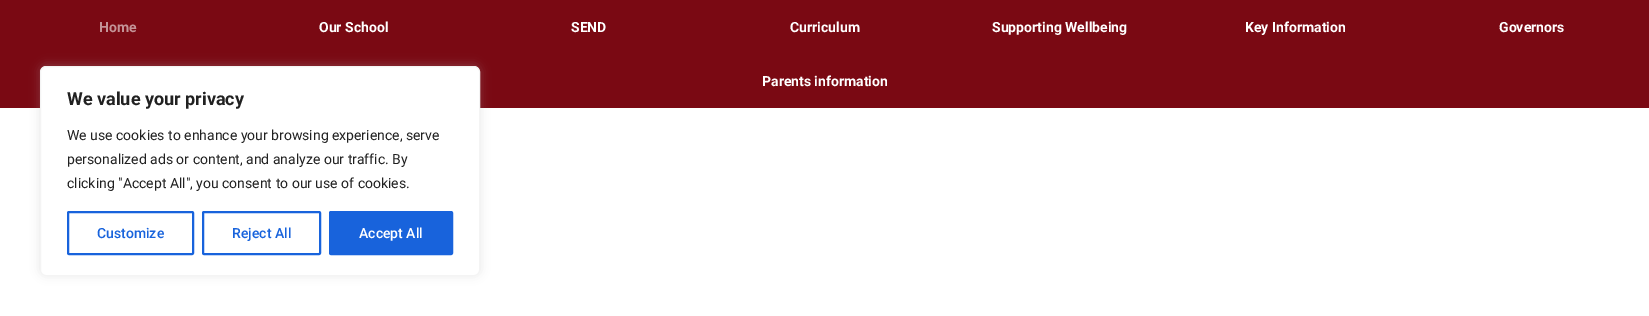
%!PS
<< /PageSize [1649 316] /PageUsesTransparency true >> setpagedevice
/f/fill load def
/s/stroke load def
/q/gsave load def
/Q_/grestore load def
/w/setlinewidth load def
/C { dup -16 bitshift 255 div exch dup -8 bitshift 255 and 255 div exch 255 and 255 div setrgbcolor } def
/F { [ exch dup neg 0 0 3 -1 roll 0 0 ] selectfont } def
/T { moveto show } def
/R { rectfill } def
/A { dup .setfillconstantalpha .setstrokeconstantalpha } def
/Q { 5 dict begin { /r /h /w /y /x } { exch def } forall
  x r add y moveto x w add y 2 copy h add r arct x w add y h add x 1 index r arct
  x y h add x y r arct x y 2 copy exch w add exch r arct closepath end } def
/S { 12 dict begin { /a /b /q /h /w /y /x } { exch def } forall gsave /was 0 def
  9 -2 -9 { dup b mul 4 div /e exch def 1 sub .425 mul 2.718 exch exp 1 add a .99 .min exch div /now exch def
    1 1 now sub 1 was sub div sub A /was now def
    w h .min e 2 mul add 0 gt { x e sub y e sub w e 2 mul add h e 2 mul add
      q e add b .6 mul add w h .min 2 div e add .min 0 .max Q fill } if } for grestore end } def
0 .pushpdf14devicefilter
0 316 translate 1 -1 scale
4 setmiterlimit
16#FFFFFF C
0 0 1649 316 R
16#7A0913 C
0 0 1649 108 R
/Roboto-Bold 14 F
16#C49397 C
(Home) 99 32 T
16#FFFFFF C
(Our School) 319 32 T
(SEND) 571 32 T
(Curriculum) 790 32 T
(Supporting Wellbeing) 992 32 T
(Key Information) 1245 32 T
(Governors) 1499 32 T
(Parents information) 762 86 T
16#ACABAB C
40 65 440 210 6 5 .3 S
16#FFFFFF C
40.5 66.5 439 209 5.5 Q q f Q_
16#F4F4F4 C
s
/Roboto-Bold 18 F
16#212121 C
(We value your privacy) 67 105 T
/Roboto-Regular 14 F
(We use cookies to enhance your browsing experience, serve) 67 140 T
(personalized ads or content, and analyze our traffic. By) 67 164 T
(clicking "Accept All", you consent to our use of cookies.) 67 188 T
16#1863DC C
2 w
68 212 125 42 1 Q s
/Roboto-Medium 14 F
(Customize) 97 238 T
203 212 117 42 1 Q s
(Reject All) 232 238 T
330 212 122 42 1 Q q f Q_
s
16#FFFFFF C
(Accept All) 359 238 T
.poppdf14devicefilter showpage
